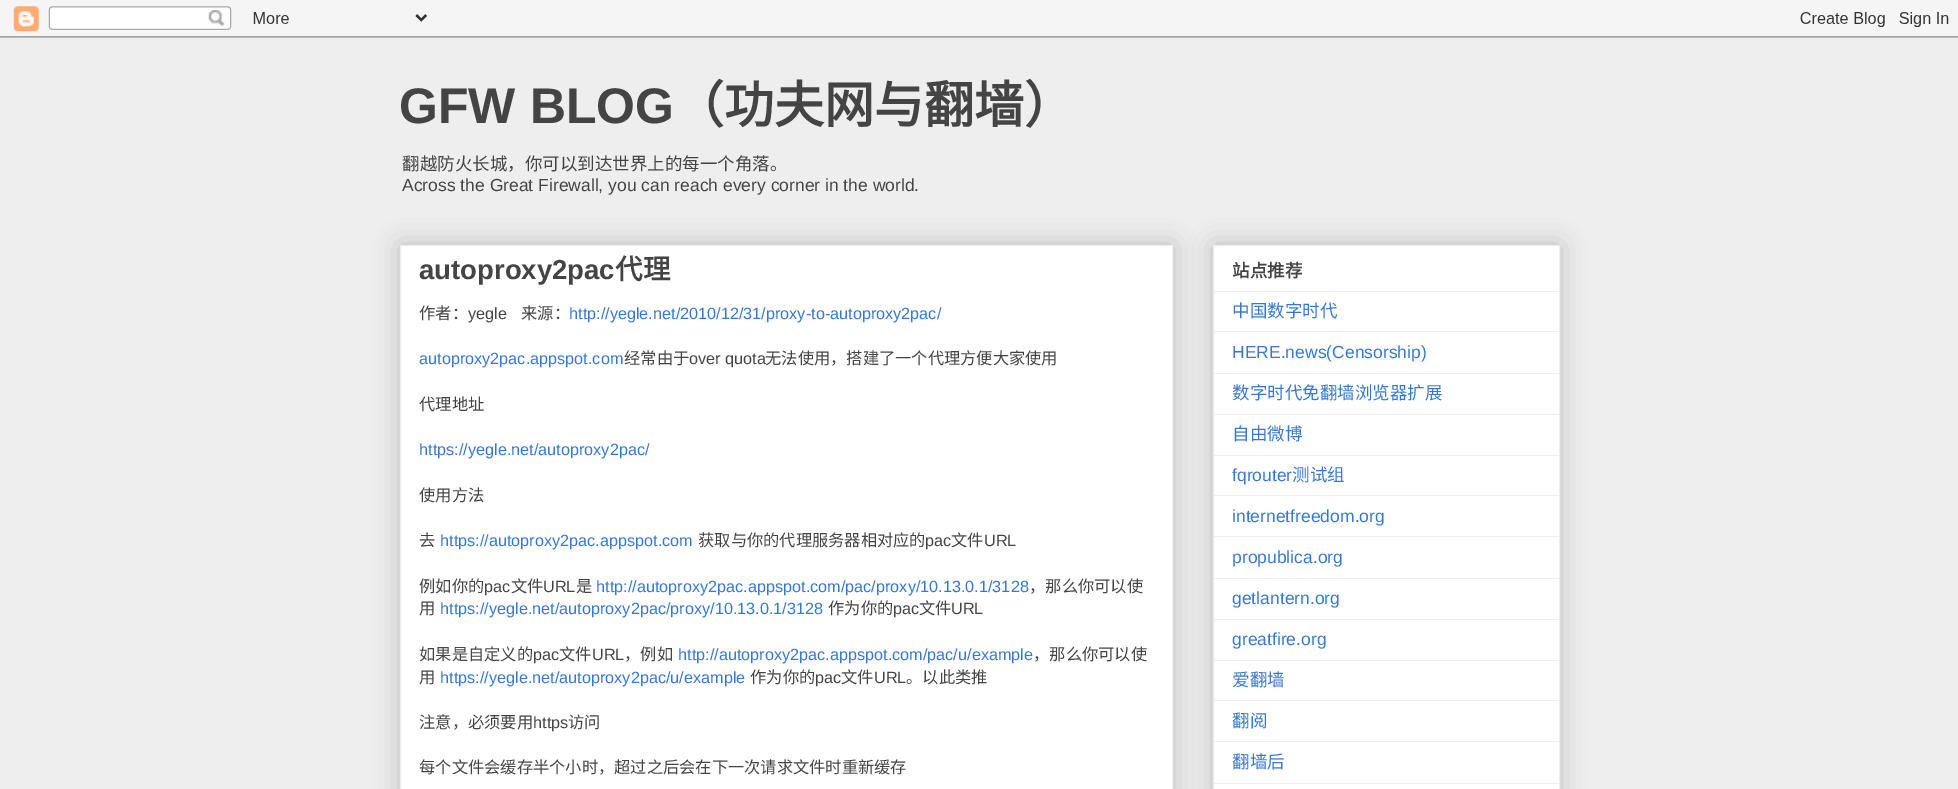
%!PS
<< /PageSize [1958 789] /PageUsesTransparency true >> setpagedevice
/m/moveto load def
/l/rlineto load def
/z/closepath load def
/f/fill load def
/s/stroke load def
/q/gsave load def
/Q_/grestore load def
/C { dup -16 bitshift 255 div exch dup -8 bitshift 255 and 255 div exch 255 and 255 div setrgbcolor } def
/F { [ exch dup neg 0 0 3 -1 roll 0 0 ] selectfont } def
/T { moveto show } def
/R { rectfill } def
/A { dup .setfillconstantalpha .setstrokeconstantalpha } def
/Q { 5 dict begin { /r /h /w /y /x } { exch def } forall
  x r add y moveto x w add y 2 copy h add r arct x w add y h add x 1 index r arct
  x y h add x y r arct x y 2 copy exch w add exch r arct closepath end } def
/S { 12 dict begin { /a /b /q /h /w /y /x } { exch def } forall gsave /was 0 def
  9 -2 -9 { dup b mul 4 div /e exch def 1 sub .425 mul 2.718 exch exp 1 add a .99 .min exch div /now exch def
    1 1 now sub 1 was sub div sub A /was now def
    w h .min e 2 mul add 0 gt { x e sub y e sub w e 2 mul add h e 2 mul add
      q e add b .6 mul add w h .min 2 div e add .min 0 .max Q fill } if } for grestore end } def
/I { 5 dict begin { /h /w /y /x /name } { exch def } forall
  gsave x y translate w h scale
  w h 8 [w 0 0 h 0 0] name (r) file false 3 colorimage grestore end } def
0 .pushpdf14devicefilter
0 789 translate 1 -1 scale
4 setmiterlimit
16#EEEEEE C
0 0 1958 789 R
(1.rgb) 0 0 1958 38 I
/LiberationSans-Bold 50 F
16#444444 C
(GFW BLOG) 399 123 T
/NotoSansCJKSC-Bold 50 F
(（功夫网与翻墙）) 674 123 T
/NotoSansCJKSC-Regular 17.5 F
(翻越防火长城，你可以到达世界上的每一个角落。) 402 170 T
/LiberationSans-Regular 17.5 F
(Across the Great Firewall, you can reach every corner in the world.) 402 191 T
16#000000 C
400 245 773 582 0 12.5 .2 S
16#FFFFFF C
400.5 245.5 m 772 0 l 0 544 l -772 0 l z q f Q_
16#EEEEEE C
s
/LiberationSans-Bold 27.5 F
16#444444 C
(autoproxy2pac) 419 279 T
/NotoSansCJKSC-Bold 27.5 F
(代理) 615 279 T
/NotoSansCJKSC-Regular 16.25 F
(作者：) 419 319 T
/LiberationSans-Regular 16.25 F
(yegle) 468 319 T
/NotoSansCJKSC-Regular 16.25 F
(来源：) 521 319 T
/LiberationSans-Regular 16.25 F
16#3778CD C
(http://yegle.net/2010/12/31/proxy-to-autoproxy2pac/) 569 319 T
(autoproxy2pac.appspot.com) 419 364 T
/NotoSansCJKSC-Regular 16.25 F
16#444444 C
(经常由于) 624 364 T
/LiberationSans-Regular 16.25 F
(over quota) 689 364 T
/NotoSansCJKSC-Regular 16.25 F
(无法使用，搭建了一个代理方便大家使用) 765 364 T
(代理地址) 419 410 T
/LiberationSans-Regular 16.25 F
16#3778CD C
(https://yegle.net/autoproxy2pac/) 419 455 T
/NotoSansCJKSC-Regular 16.25 F
16#444444 C
(使用方法) 419 501 T
(去) 419 546 T
/LiberationSans-Regular 16.25 F
16#3778CD C
(https://autoproxy2pac.appspot.com) 440 546 T
/NotoSansCJKSC-Regular 16.25 F
16#444444 C
(获取与你的代理服务器相对应的) 698 546 T
/LiberationSans-Regular 16.25 F
(pac) 925 546 T
/NotoSansCJKSC-Regular 16.25 F
(文件) 951 546 T
/LiberationSans-Regular 16.25 F
(URL) 984 546 T
/NotoSansCJKSC-Regular 16.25 F
(例如你的) 419 592 T
/LiberationSans-Regular 16.25 F
(pac) 484 592 T
/NotoSansCJKSC-Regular 16.25 F
(文件) 511 592 T
/LiberationSans-Regular 16.25 F
(URL) 543 592 T
/NotoSansCJKSC-Regular 16.25 F
(是) 576 592 T
/LiberationSans-Regular 16.25 F
16#3778CD C
(http://autoproxy2pac.appspot.com/pac/proxy/10.13.0.1/3128) 596 592 T
/NotoSansCJKSC-Regular 16.25 F
16#444444 C
(，那么你可以使) 1029 592 T
(用) 419 614 T
/LiberationSans-Regular 16.25 F
16#3778CD C
(https://yegle.net/autoproxy2pac/proxy/10.13.0.1/3128) 440 614 T
/NotoSansCJKSC-Regular 16.25 F
16#444444 C
(作为你的) 828 614 T
/LiberationSans-Regular 16.25 F
(pac) 893 614 T
/NotoSansCJKSC-Regular 16.25 F
(文件) 919 614 T
/LiberationSans-Regular 16.25 F
(URL) 951 614 T
/NotoSansCJKSC-Regular 16.25 F
(如果是自定义的) 419 660 T
/LiberationSans-Regular 16.25 F
(pac) 533 660 T
/NotoSansCJKSC-Regular 16.25 F
(文件) 559 660 T
/LiberationSans-Regular 16.25 F
(URL) 592 660 T
/NotoSansCJKSC-Regular 16.25 F
(，例如) 624 660 T
/LiberationSans-Regular 16.25 F
16#3778CD C
(http://autoproxy2pac.appspot.com/pac/u/example) 678 660 T
/NotoSansCJKSC-Regular 16.25 F
16#444444 C
(，那么你可以使) 1033 660 T
(用) 419 683 T
/LiberationSans-Regular 16.25 F
16#3778CD C
(https://yegle.net/autoproxy2pac/u/example) 440 683 T
/NotoSansCJKSC-Regular 16.25 F
16#444444 C
(作为你的) 750 683 T
/LiberationSans-Regular 16.25 F
(pac) 815 683 T
/NotoSansCJKSC-Regular 16.25 F
(文件) 841 683 T
/LiberationSans-Regular 16.25 F
(URL) 874 683 T
/NotoSansCJKSC-Regular 16.25 F
(。以此类推) 906 683 T
(注意，必须要用) 419 728 T
/LiberationSans-Regular 16.25 F
(https) 533 728 T
/NotoSansCJKSC-Regular 16.25 F
(访问) 568 728 T
(每个文件会缓存半个小时，超过之后会在下一次请求文件时重新缓存) 419 773 T
16#000000 C
1213 245 347 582 0 12.5 .2 S
16#FFFFFF C
1213.5 245.5 m 346 0 l 0 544 l -346 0 l z q f Q_
16#EEEEEE C
s
/NotoSansCJKSC-Bold 17.5 F
16#444444 C
(站点推荐) 1232 277 T
16#EEEEEE C
1214 291 345 1 R
/NotoSansCJKSC-Regular 17.5 F
16#3778CD C
(中国数字时代) 1232 317 T
16#EEEEEE C
1214 331 345 1 R
/LiberationSans-Regular 17.5 F
16#3778CD C
(HERE.news\(Censorship\)) 1232 358 T
16#EEEEEE C
1214 373 345 1 R
/NotoSansCJKSC-Regular 17.5 F
16#3778CD C
(数字时代免翻墙浏览器扩展) 1232 399 T
16#EEEEEE C
1214 414 345 1 R
16#3778CD C
(自由微博) 1232 440 T
16#EEEEEE C
1214 455 345 1 R
/LiberationSans-Regular 17.5 F
16#3778CD C
(fqrouter) 1232 481 T
/NotoSansCJKSC-Regular 17.5 F
(测试组) 1292 481 T
16#EEEEEE C
1214 495 345 1 R
/LiberationSans-Regular 17.5 F
16#3778CD C
(internetfreedom.org) 1232 522 T
16#EEEEEE C
1214 536 345 1 R
16#3778CD C
(propublica.org) 1232 563 T
16#EEEEEE C
1214 578 345 1 R
16#3778CD C
(getlantern.org) 1232 604 T
16#EEEEEE C
1214 619 345 1 R
16#3778CD C
(greatfire.org) 1232 645 T
16#EEEEEE C
1214 660 345 1 R
/NotoSansCJKSC-Regular 17.5 F
16#3778CD C
(爱翻墙) 1232 686 T
16#EEEEEE C
1214 700 345 1 R
16#3778CD C
(翻阅) 1232 727 T
16#EEEEEE C
1214 741 345 1 R
16#3778CD C
(翻墙后) 1232 768 T
16#EEEEEE C
1214 783 345 1 R
.poppdf14devicefilter showpage
